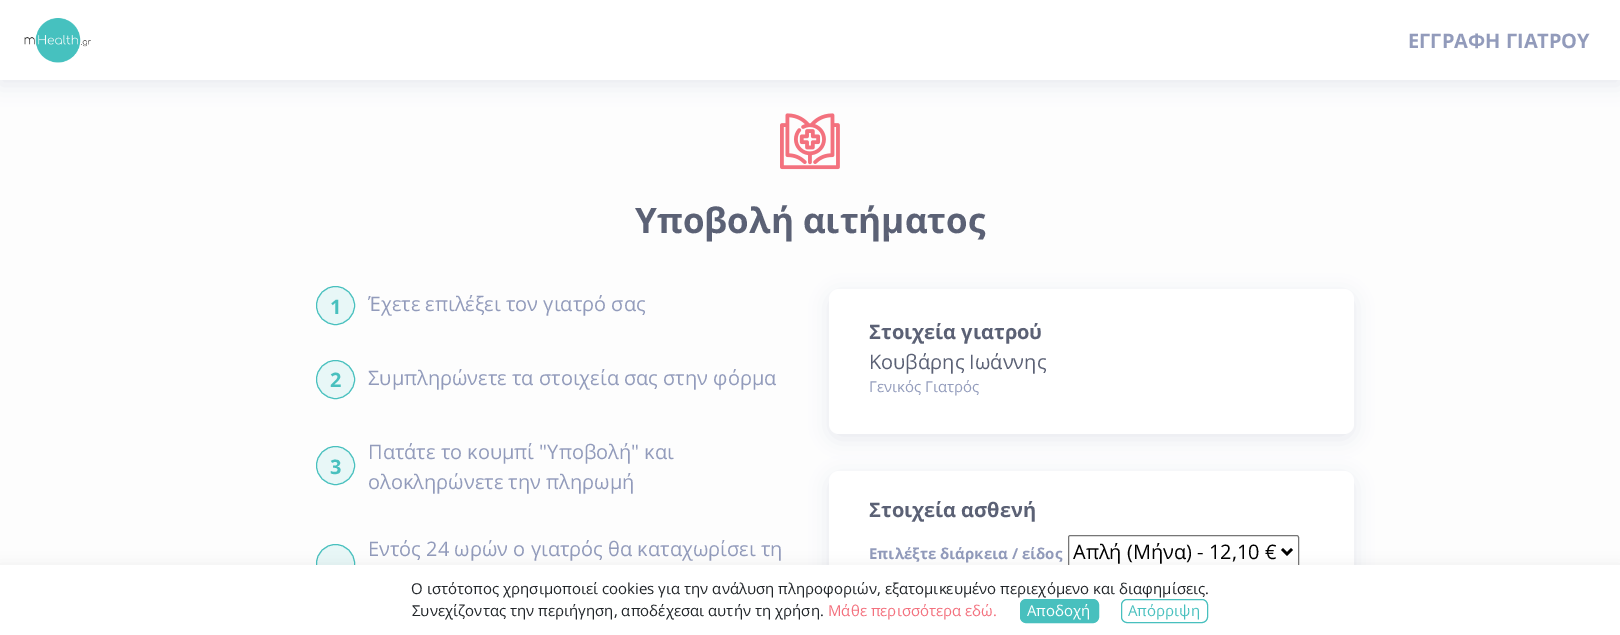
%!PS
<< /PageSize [1620 635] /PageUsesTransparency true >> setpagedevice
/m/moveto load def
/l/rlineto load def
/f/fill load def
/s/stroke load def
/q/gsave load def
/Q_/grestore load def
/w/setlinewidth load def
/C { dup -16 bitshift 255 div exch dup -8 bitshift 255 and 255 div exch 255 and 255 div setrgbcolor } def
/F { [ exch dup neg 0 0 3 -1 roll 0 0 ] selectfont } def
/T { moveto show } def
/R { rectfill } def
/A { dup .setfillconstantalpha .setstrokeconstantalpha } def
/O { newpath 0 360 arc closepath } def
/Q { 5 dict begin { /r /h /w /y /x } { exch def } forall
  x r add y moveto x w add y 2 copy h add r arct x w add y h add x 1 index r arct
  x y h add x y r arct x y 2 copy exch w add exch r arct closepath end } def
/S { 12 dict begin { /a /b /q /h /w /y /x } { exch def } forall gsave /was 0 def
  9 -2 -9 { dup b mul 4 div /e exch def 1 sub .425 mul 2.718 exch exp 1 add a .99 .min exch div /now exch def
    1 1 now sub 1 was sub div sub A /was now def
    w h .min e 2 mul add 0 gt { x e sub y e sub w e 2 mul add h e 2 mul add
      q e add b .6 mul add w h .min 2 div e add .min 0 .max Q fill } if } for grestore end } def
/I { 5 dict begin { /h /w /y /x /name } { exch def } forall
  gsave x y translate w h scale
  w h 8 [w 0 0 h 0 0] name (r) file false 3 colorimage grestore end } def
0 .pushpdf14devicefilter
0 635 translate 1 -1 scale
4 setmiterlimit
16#FDFDFD C
0 0 1620 635 R
(2.rgb) 780 113 60 57 I
16#B5BCD2 C
0 5 1620 80 0 10 .3 S
16#FFFFFF C
0 0 1620 80 R
(1.rgb) 24 18 67 45 I
/OpenSans-Bold 20 F
16#929BBB C
(ΕΓΓΡΑΦΗ ΓΙΑΤΡΟΥ) 1408 48 T
/OpenSans-Bold 35 F
16#5B6175 C
(Yποβολή αιτήματος) 635 233 T
16#E8F7F7 C
335.5 305.5 19 O q f Q_
16#48C0BE C
s
/OpenSans-Bold 20 F
(1) 330 314 T
/OpenSans-Regular 20 F
16#929BBB C
(Έχετε επιλέξει τον γιατρό σας) 368 311 T
16#E8F7F7 C
335.5 379.5 19 O q f Q_
16#48C0BE C
s
/OpenSans-Bold 20 F
(2) 330 387 T
/OpenSans-Regular 20 F
16#929BBB C
(Συμπληρώνετε τα στοιχεία σας στην φόρμα) 368 385 T
16#E8F7F7 C
335.5 465.5 19 O q f Q_
16#48C0BE C
s
/OpenSans-Bold 20 F
(3) 330 474 T
/OpenSans-Regular 20 F
16#929BBB C
(Πατάτε το κουμπί "Υποβολή" και) 368 459 T
(ολοκληρώνετε την πληρωμή) 368 489 T
16#E8F7F7 C
335.5 563.5 19 O q f Q_
16#48C0BE C
s
16#929BBB C
(Εντός 24 ωρών ο γιατρός θα καταχωρίσει τη) 368 556 T
16#B5BCD2 C
829 294 525 145 10 9.5 .3 S
16#FFFFFF C
829 289 525 145 10 Q f
/OpenSans-Bold 20 F
16#5B6175 C
(Στοιχεία γιατρού) 869 339 T
/OpenSans-Regular 20 F
(Κουβάρης Ιωάννης) 869 369 T
/OpenSans-Regular 15 F
16#929BBB C
(Γενικός Γιατρός) 869 392 T
16#B5BCD2 C
829 476 525 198 10 9.5 .3 S
16#FFFFFF C
829 471 525 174 10 Q f
/OpenSans-Bold 20 F
16#5B6175 C
(Στοιχεία ασθενή) 869 517 T
/OpenSans-Bold 15 F
16#929BBB C
(Επιλέξτε διάρκεια / είδος) 869 559 T
16#767676 C
1068.5 535.5 230 32 2 Q s
16#000000 C
2.5 w
1282 549 m 5 5 l 5 -5 l s
/OpenSans-Regular 20 F
(Απλή \(Μήνα\) - 12,10 €) 1073 559 T
0 568 1620 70 0 7.5 .08 S
16#FFFFFF C
0 565 1620 70 R
/OpenSans-Regular 15 F
16#212529 C
(Ο ιστότοπος χρησιμοποιεί cookies για την ανάλυση πληροφοριών, εξατομικευμένο περιεχόμενο και διαφημίσεις.) 411 594 T
(Συνεχίζοντας την περιήγηση, αποδέχεσαι αυτήν τη χρήση.) 412 616 T
16#F3717E C
(Μάθε περισσότερα εδώ.) 828 616 T
16#48C0BE C
1020.5 599.5 78 23 5.5 Q q f Q_
1 w
s
16#FFFFFF C
(Αποδοχή) 1027 616 T
16#48C0BE C
1121.5 599.5 86 23 5.5 Q s
(Απόρριψη) 1128 616 T
.poppdf14devicefilter showpage
